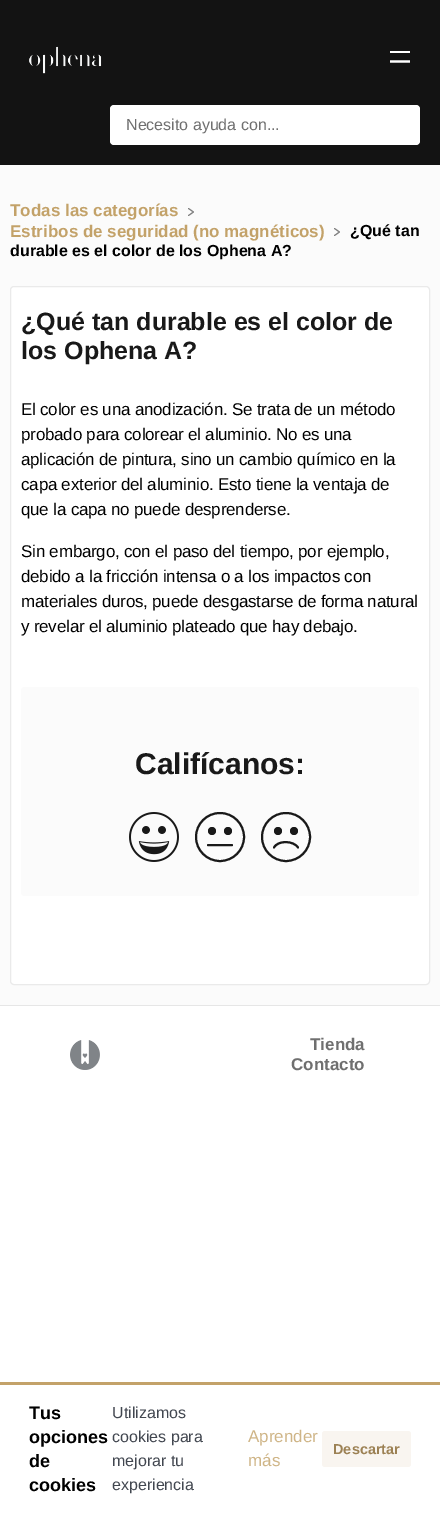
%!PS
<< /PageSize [440 1513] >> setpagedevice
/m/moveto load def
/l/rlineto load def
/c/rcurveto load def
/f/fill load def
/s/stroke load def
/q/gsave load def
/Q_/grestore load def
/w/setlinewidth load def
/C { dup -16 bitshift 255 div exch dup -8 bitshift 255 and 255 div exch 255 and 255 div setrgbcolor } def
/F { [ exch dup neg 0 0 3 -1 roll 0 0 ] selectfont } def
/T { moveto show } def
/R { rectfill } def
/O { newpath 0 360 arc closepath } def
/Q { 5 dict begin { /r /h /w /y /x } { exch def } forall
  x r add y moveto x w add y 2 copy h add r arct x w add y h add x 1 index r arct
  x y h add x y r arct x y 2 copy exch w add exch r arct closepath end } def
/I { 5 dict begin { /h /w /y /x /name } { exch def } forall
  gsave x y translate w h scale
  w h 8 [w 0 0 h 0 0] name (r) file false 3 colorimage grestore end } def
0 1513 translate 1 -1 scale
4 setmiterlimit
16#FFFFFF C
0 0 440 1513 R
16#131313 C
0 0 440 165 R
(1.rgb) 29 46 73 28 I
16#FFFFFF C
390 51 20 2 R
q
390 51 20 14 rectclip
2.2 w
390 61.5 m 22 0 l s
Q_
110 105 310 40 4 Q f
/LiberationSans-Regular 16 F
16#6F6F6F C
(Necesito ayuda con...) 126 130 T
16#FBFBFB C
0 165 440 840 R
/LiberationSans-Bold 17 F
16#C3A269 C
(Todas las categorías) 10 216 T
16#808080 C
1 setlinecap
1 setlinejoin
188.5 208.5 m 5 3.5 l -5 3.5 l s
16#C3A269 C
(Estribos de seguridad \(no magnéticos\)) 10 237 T
16#808080 C
334.5 228.5 m 5 3.5 l -5 3.5 l s
/LiberationSans-Bold 16 F
16#000000 C
(¿Qué tan) 350 236 T
(durable es el color de los Ophena A?) 10 256 T
16#FFFFFF C
10.5 286.5 419 698 3.5 Q q f Q_
16#EAEAEA C
0 setlinecap
0 setlinejoin
s
/LiberationSans-Bold 25 F
16#191919 C
(¿Qué tan durable es el color de) 21 330 T
(los Ophena A?) 21 359 T
/LiberationSans-Regular 17 F
16#000000 C
21 415 m -.22 0 (El color es una anodización. Se trata de un método) ashow
21 440 m -.22 0 (probado para colorear el aluminio. No es una) ashow
21 465 m -.22 0 (aplicación de pintura, sino un cambio químico en la) ashow
21 490 m -.22 0 (capa exterior del aluminio. Esto tiene la ventaja de) ashow
21 515 m -.22 0 (que la capa no puede desprenderse.) ashow
21 557 m -.22 0 (Sin embargo, con el paso del tiempo, por ejemplo,) ashow
21 582 m -.22 0 (debido a la fricción intensa o a los impactos con) ashow
21 607 m -.22 0 (materiales duros, puede desgastarse de forma natural) ashow
21 632 m -.22 0 (y revelar el aluminio plateado que hay debajo.) ashow
16#FBFBFB C
21 687 398 209 4 Q f
/LiberationSans-Bold 30 F
16#191919 C
(Califícanos:) 135 774 T
(2.rgb) 129 812 50 50 I
2 w
220 837 24 O s
212 831 4 O f
228 831 4 O f
1 setlinecap
208 845 m 24 0 l s
0 setlinecap
286 837 24 O s
278 831 4 O f
294 831 4 O f
1 setlinecap
274 847.5 m 4 -7.5 19.5 -7 24 0 c s
16#E6E6E6 C
0 1005 440 1 R
(3.rgb) 70 1040 30 30 I
/LiberationSans-Bold 17 F
16#6F6F6F C
(Tienda) 310 1050 T
(Contacto) 291 1070 T
16#C3A269 C
0 1382 440 3 R
/LiberationSans-Bold 18 F
16#000000 C
(Tus) 29 1419 T
(opciones) 29 1443 T
(de) 29 1467 T
(cookies) 29 1491 T
/LiberationSans-Regular 16 F
16#424750 C
(Utilizamos) 112 1418 T
(cookies para) 112 1442 T
(mejorar tu) 112 1466 T
(experiencia) 112 1490 T
/LiberationSans-Regular 17 F
16#CFB587 C
(Aprender) 248 1442 T
(más) 248 1466 T
16#F9F5F0 C
322 1431 89 36 3 Q f
/LiberationSans-Bold 14.5 F
16#9C8154 C
(Descartar) 333 1454 T
showpage
